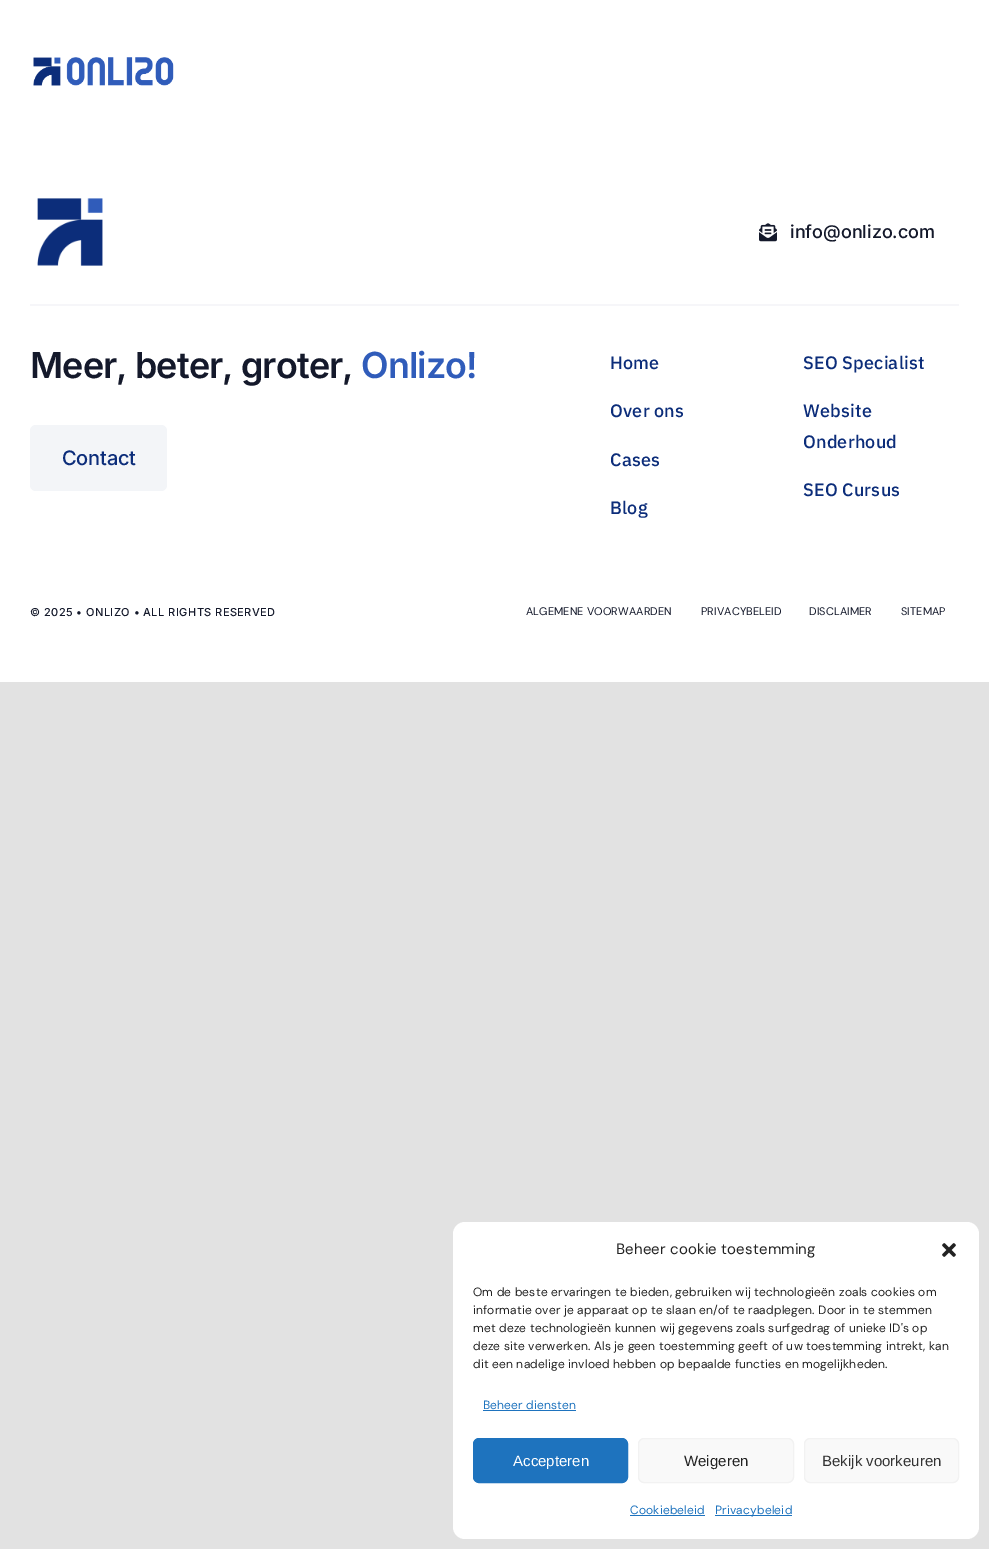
%!PS
<< /PageSize [989 1549] >> setpagedevice
/m/moveto load def
/f/fill load def
/s/stroke load def
/q/gsave load def
/Q_/grestore load def
/C { dup -16 bitshift 255 div exch dup -8 bitshift 255 and 255 div exch 255 and 255 div setrgbcolor } def
/F { [ exch dup neg 0 0 3 -1 roll 0 0 ] selectfont } def
/T { moveto show } def
/R { rectfill } def
/Q { 5 dict begin { /r /h /w /y /x } { exch def } forall
  x r add y moveto x w add y 2 copy h add r arct x w add y h add x 1 index r arct
  x y h add x y r arct x y 2 copy exch w add exch r arct closepath end } def
/I { 5 dict begin { /h /w /y /x /name } { exch def } forall
  gsave x y translate w h scale
  w h 8 [w 0 0 h 0 0] name (r) file false 3 colorimage grestore end } def
0 1549 translate 1 -1 scale
4 setmiterlimit
16#E2E2E2 C
0 0 989 1549 R
16#FFFFFF C
0 0 989 682 R
(1.rgb) 33 57 141 29 I
16#F6F6F9 C
30 304 929 2 R
(2.rgb) 37 198 66 68 I
(3.rgb) 759 223 18 19 I
/Inter-Medium 18 F
16#14192B C
(info@onlizo.com) 790 238 T
/Inter-SemiBold 35.9 F
30 378 m -.9 0 (Meer, beter, groter,) ashow
16#305CBA C
361 378 m -.9 0 (Onlizo!) ashow
16#F3F5F8 C
30 425 137 66 6 Q f
/Inter-Medium 20 F
16#0C2D7A C
62 465 m -.25 0 (Contact) ashow
/IBMPlexSans-Medium 18 F
610 369 m .18 0 (Home) ashow
610 417 m .18 0 (Over ons) ashow
610 466 m .18 0 (Cases) ashow
610 514 m .18 0 (Blog) ashow
803 369 m .18 0 (SEO Specialist) ashow
803 417 m .18 0 (Website) ashow
803 448 m .18 0 (Onderhoud) ashow
803 496 m .18 0 (SEO Cursus) ashow
/Inter-Medium 11 F
16#14192B C
30 616 m .45 0 (© 2025 • ONLIZO • ALL RIGHTS RESERVED) ashow
/DMSans-Regular 11 F
526 615 m .1 0 (ALGEMENE VOORWAARDEN) ashow
701 615 m .1 0 (PRIVACYBELEID) ashow
809 615 m .1 0 (DISCLAIMER) ashow
901 615 m .1 0 (SITEMAP) ashow
16#FFFFFF C
453 1222 526 317 12 Q f
/DMSans-Regular 15 F
16#222222 C
616 1254 m .18 0 (Beheer cookie toestemming) ashow
(4.rgb) 942 1243 14 14 I
/DMSans-Regular 12 F
473 1296 m .18 0 (Om de beste ervaringen te bieden, gebruiken wij technologieën zoals cookies om) ashow
473 1314 m .18 0 (informatie over je apparaat op te slaan en/of te raadplegen. Door in te stemmen) ashow
473 1332 m .18 0 (met deze technologieën kunnen wij gegevens zoals surfgedrag of unieke ID's op) ashow
473 1350 m .18 0 (deze site verwerken. Als je geen toestemming geeft of uw toestemming intrekt, kan) ashow
473 1368 m .18 0 (dit een nadelige invloed hebben op bepaalde functies en mogelijkheden.) ashow
16#1E73BE C
483 1409 m .18 0 (Beheer diensten) ashow
483 1410 93 1 R
473.5 1438.5 154 44 5.5 Q q f Q_
s
/LiberationSans-Regular 15 F
16#FFFFFF C
(Accepteren) 513 1466 T
16#F9F9F9 C
638.5 1438.5 155 44 5.5 Q q f Q_
16#F2F2F2 C
s
16#222222 C
(Weigeren) 684 1466 T
16#F9F9F9 C
804.5 1438.5 154 44 5.5 Q q f Q_
16#F2F2F2 C
s
16#333333 C
(Bekijk voorkeuren) 822 1466 T
/DMSans-Regular 12 F
16#1E73BE C
630 1514 m .18 0 (Cookiebeleid) ashow
630 1515 75 1 R
715 1515 77 1 R
715 1514 m .18 0 (Privacybeleid) ashow
showpage
